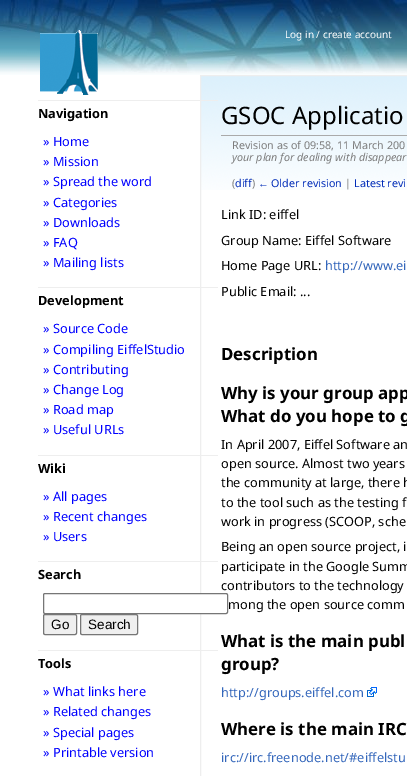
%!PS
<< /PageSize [407 776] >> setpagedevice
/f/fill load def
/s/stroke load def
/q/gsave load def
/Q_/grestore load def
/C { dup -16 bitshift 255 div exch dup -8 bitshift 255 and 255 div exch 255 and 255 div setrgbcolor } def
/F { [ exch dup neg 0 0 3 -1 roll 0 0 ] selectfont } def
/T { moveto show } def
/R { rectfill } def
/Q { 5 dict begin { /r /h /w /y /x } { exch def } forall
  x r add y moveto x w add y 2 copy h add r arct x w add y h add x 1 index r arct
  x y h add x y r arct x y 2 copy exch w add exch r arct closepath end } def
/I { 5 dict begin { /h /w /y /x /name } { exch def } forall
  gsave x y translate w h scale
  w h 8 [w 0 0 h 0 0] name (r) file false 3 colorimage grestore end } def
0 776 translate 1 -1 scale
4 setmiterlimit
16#FFFFFF C
0 0 407 776 R
(1.rgb) 0 73 407 2 I
(2.rgb) 0 0 407 73 I
(3.rgb) 40 30 58 65 I
/NotoSans-Regular 10 F
(Log in / create account) 285 38 T
(4.rgb) 201 76 206 114 I
16#EEEEEE C
200.5 75.5 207 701 rectstroke
38 100 180 1 R
/NotoSans-Bold 12.75 F
16#000000 C
(Navigation) 38 118 T
/NotoSans-Regular 12.75 F
16#0000FF C
(» Home) 43 146 T
(» Mission) 43 166 T
(» Spread the word) 43 186 T
(» Categories) 43 207 T
(» Downloads) 43 227 T
(» FAQ) 43 247 T
(» Mailing lists) 43 267 T
16#EEEEEE C
38 287 180 1 R
/NotoSans-Bold 12.75 F
16#000000 C
(Development) 38 305 T
/NotoSans-Regular 12.75 F
16#0000FF C
(» Source Code) 43 333 T
(» Compiling EiffelStudio) 43 354 T
(» Contributing) 43 374 T
(» Change Log) 43 394 T
(» Road map) 43 414 T
(» Useful URLs) 43 434 T
16#EEEEEE C
38 455 180 1 R
/NotoSans-Bold 12.75 F
16#000000 C
(Wiki) 38 473 T
/NotoSans-Regular 12.75 F
16#0000FF C
(» All pages) 43 501 T
(» Recent changes) 43 521 T
(» Users) 43 541 T
16#EEEEEE C
38 561 180 1 R
/NotoSans-Bold 12.75 F
16#000000 C
(Search) 38 579 T
/NotoSans-Regular 12.75 F
(contributors to the technology) 221 590 T
16#FFFFFF C
43.5 593.5 184 20 1.5 Q q f Q_
16#767676 C
s
16#EFEFEF C
43.5 614.5 33 20 1.5 Q q f Q_
16#767676 C
s
/LiberationSans-Regular 13.5 F
16#000000 C
(Go) 51 629 T
16#EFEFEF C
80.5 614.5 57 20 1.5 Q q f Q_
16#767676 C
s
16#000000 C
(Search) 88 629 T
16#EEEEEE C
38 650 180 1 R
/NotoSans-Bold 12.75 F
16#000000 C
(Tools) 38 668 T
/NotoSans-Regular 12.75 F
16#0000FF C
(» What links here) 43 696 T
(» Related changes) 43 716 T
(» Special pages) 43 737 T
(» Printable version) 43 757 T
16#AAAAAA C
221 135 186 1 R
/NotoSans-Regular 24 F
16#000000 C
(GSOC Applicatio) 221 124 T
/NotoSans-Regular 10.75 F
16#7D7D7D C
(Revision as of 09:58, 11 March 200) 232 149 T
/NotoSans-Italic 10.75 F
(your plan for dealing with disappear) 232 161 T
/NotoSans-Regular 10.75 F
(\() 232 187 T
16#002BB8 C
(diff) 235 187 T
16#7D7D7D C
(\)) 252 187 T
/LiberationSerif-Regular 10.75 F
16#002BB8 C
(←) 258 187 T
/NotoSans-Regular 10.75 F
(Older revision) 271 187 T
16#7D7D7D C
(|) 345 187 T
16#002BB8 C
(Latest revi) 354 187 T
/NotoSans-Regular 12.75 F
16#000000 C
(Link ID: eiffel) 221 219 T
(Group Name: Eiffel Software) 221 245 T
(Home Page URL:) 221 270 T
16#3366BB C
(http://www.ei) 325 270 T
16#000000 C
(Public Email: ...) 221 296 T
/NotoSans-Bold 16.9 F
(Description) 221 360 T
(Why is your group app) 221 399 T
(What do you hope to g) 221 422 T
/NotoSans-Regular 12.75 F
(In April 2007, Eiffel Software an) 221 449 T
(open source. Almost two years) 221 468 T
(the community at large, there h) 221 487 T
(to the tool such as the testing f) 221 507 T
(work in progress \(SCOOP, sche) 221 526 T
(Being an open source project, i) 221 551 T
(participate in the Google Summ) 221 571 T
(mong the open source comm) 228 609 T
/NotoSans-Bold 16.9 F
(What is the main publ) 221 647 T
(group?) 221 670 T
/NotoSans-Regular 12.75 F
16#3366BB C
(http://groups.eiffel.com) 221 697 T
(5.rgb) 367 687 10 10 I
/NotoSans-Bold 16.9 F
16#000000 C
(Where is the main IRC) 221 735 T
/NotoSans-Regular 12.75 F
16#3366BB C
(irc://irc.freenode.net/#eiffelstu) 221 762 T
showpage
